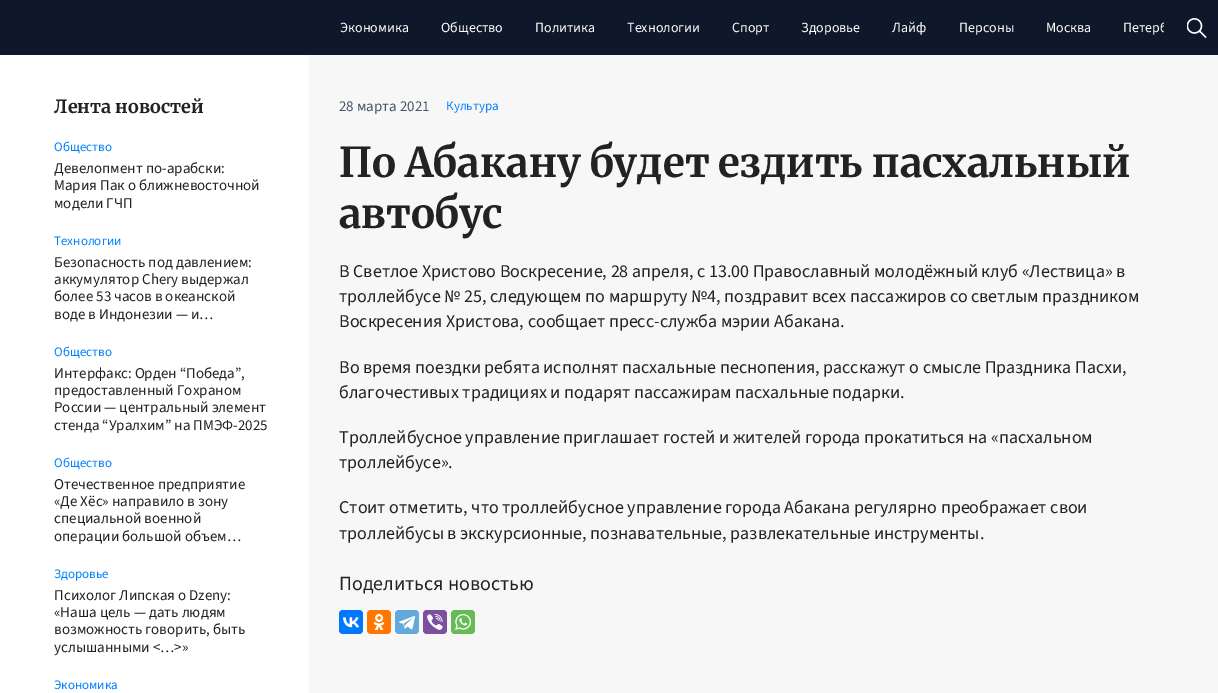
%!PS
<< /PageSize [1218 693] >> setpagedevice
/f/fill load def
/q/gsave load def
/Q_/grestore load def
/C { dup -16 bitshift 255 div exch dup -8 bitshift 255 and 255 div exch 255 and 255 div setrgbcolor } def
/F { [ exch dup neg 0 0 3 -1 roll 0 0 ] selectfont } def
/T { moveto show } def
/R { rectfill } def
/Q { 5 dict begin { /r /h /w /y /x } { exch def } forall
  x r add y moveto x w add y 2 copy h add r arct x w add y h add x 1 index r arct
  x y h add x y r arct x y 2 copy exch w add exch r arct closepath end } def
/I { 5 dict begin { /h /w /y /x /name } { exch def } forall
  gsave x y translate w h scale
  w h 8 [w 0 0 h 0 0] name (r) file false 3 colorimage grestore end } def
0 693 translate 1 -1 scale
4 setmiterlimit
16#F7F7F7 C
0 0 1218 693 R
16#0F172A C
0 0 1218 55 R
/SourceSans3-Regular 14 F
16#FFFFFF C
(Экономика) 340 32 T
(Общество) 441 32 T
(Политика) 535 32 T
(Технологии) 627 32 T
(Спорт) 732 32 T
(Здоровье) 801 32 T
(Лайф) 892 32 T
(Персоны) 959 32 T
(Москва) 1046 32 T
q
324 5 840 46 rectclip
(Петерб) 1123 32 T
Q_
(1.rgb) 1187 18 20 20 I
0 55 309 638 R
/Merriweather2-Bold 18 F
16#222222 C
(Лента новостей) 54 113 T
/SourceSans3-Regular 13 F
16#0082FF C
(Общество) 54 151 T
/SourceSans3-Regular 15 F
16#222222 C
(Девелопмент по-арабски:) 54 173 T
(Мария Пак о ближневосточной) 54 190 T
(модели ГЧП) 54 208 T
/SourceSans3-Regular 13 F
16#0082FF C
(Технологии) 54 245 T
/SourceSans3-Regular 15 F
16#222222 C
(Безопасность под давлением:) 54 267 T
(аккумулятор Chery выдержал) 54 284 T
(более 53 часов в океанской) 54 301 T
(воде в Индонезии — и…) 54 319 T
/SourceSans3-Regular 13 F
16#0082FF C
(Общество) 54 356 T
/SourceSans3-Regular 15 F
16#222222 C
(Интерфакс: Орден “Победа”,) 54 378 T
(предоставленный Гохраном) 54 395 T
(России — центральный элемент) 54 412 T
(стенда “Уралхим” на ПМЭФ-2025) 54 430 T
/SourceSans3-Regular 13 F
16#0082FF C
(Общество) 54 467 T
/SourceSans3-Regular 15 F
16#222222 C
(Отечественное предприятие) 54 489 T
(«Де Хёс» направило в зону) 54 506 T
(специальной военной) 54 523 T
(операции большой объем…) 54 541 T
/SourceSans3-Regular 13 F
16#0082FF C
(Здоровье) 54 578 T
/SourceSans3-Regular 15 F
16#222222 C
(Психолог Липская о Dzeny:) 54 600 T
(«Наша цель — дать людям) 54 617 T
(возможность говорить, быть) 54 634 T
(услышанными <…>») 54 652 T
/SourceSans3-Regular 13 F
16#0082FF C
(Экономика) 54 689 T
/SourceSans3-Regular 15 F
16#475569 C
(28 марта 2021) 339 111 T
/SourceSans3-Regular 13 F
16#0082FF C
(Культура) 446 110 T
/Merriweather-Bold 41 F
16#222222 C
(По Абакану будет ездить пасхальный) 339 177 T
(автобус) 339 228 T
/SourceSans3-Regular 18 F
(В Светлое Христово Воскресение, 28 апреля, с 13.00 Православный молодёжный клуб «Лествица» в) 339 277 T
(троллейбусе № 25, следующем по маршруту №4, поздравит всех пассажиров со светлым праздником) 339 302 T
(Воскресения Христова, сообщает пресс-служба мэрии Абакана.) 339 327 T
(Во время поездки ребята исполнят пасхальные песнопения, расскажут о смысле Праздника Пасхи,) 339 373 T
(благочестивых традициях и подарят пассажирам пасхальные подарки.) 339 398 T
(Троллейбусное управление приглашает гостей и жителей города прокатиться на «пасхальном) 339 443 T
(троллейбусе».) 339 468 T
(Стоит отметить, что троллейбусное управление города Абакана регулярно преображает свои) 339 513 T
(троллейбусы в экскурсионные, познавательные, развлекательные инструменты.) 339 539 T
/SourceSans3-Regular 20 F
(Поделиться новостью) 339 590 T
16#0077FF C
339 610 24 24 4 Q f
(2.rgb) 343 617 16 11 I
16#FF7700 C
367 610 24 24 4 Q f
(3.rgb) 373 614 12 16 I
16#64A9DC C
395 610 24 24 4 Q f
(4.rgb) 399 616 16 14 I
16#7B519D C
423 610 24 24 4 Q f
(5.rgb) 427 614 16 16 I
16#65BC54 C
451 610 24 24 4 Q f
(6.rgb) 455 614 16 16 I
showpage
